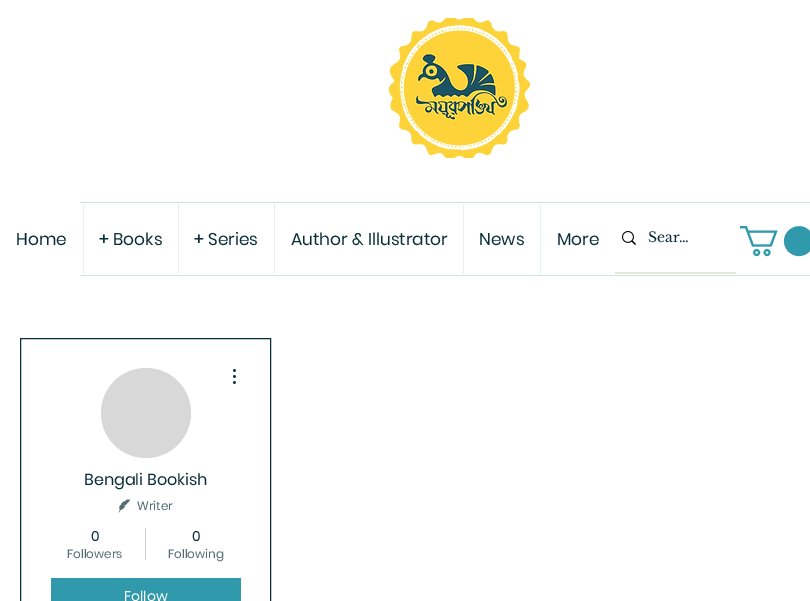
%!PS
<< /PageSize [810 601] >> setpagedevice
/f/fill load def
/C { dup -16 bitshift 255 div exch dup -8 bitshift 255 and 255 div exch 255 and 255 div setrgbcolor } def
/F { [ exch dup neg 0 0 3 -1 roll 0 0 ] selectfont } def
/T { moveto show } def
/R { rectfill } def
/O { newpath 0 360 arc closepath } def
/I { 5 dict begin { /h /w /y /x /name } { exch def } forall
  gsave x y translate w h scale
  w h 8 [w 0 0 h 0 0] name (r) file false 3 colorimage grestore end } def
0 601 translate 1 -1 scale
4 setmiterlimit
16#FFFFFF C
0 0 810 601 R
(1.rgb) 389 18 141 140 I
16#CCE5E9 C
80 202 730 1 R
16#EBE5D6 C
610 272 126 2 R
16#FFFFFF C
610 272 5 2 R
/Poppins-Regular 17 F
16#092F37 C
(Home) 16 245 T
16#E7F1F0 C
83 204 1 70 R
16#092F37 C
(+ Books) 99 245 T
16#E7F1F0 C
178 204 1 70 R
16#092F37 C
(+ Series) 194 245 T
16#E7F1F0 C
274 204 1 70 R
16#092F37 C
(Author & Illustrator) 291 245 T
16#E7F1F0 C
463 204 1 70 R
16#092F37 C
(News) 479 245 T
16#E7F1F0 C
540 204 1 70 R
16#092F37 C
(More) 557 245 T
(2.rgb) 622 231 14 14 I
/LibreBaskerville-Regular 14 F
(Sear…) 648 242 T
(3.rgb) 740 226 70 31 I
16#CCE5E9 C
80 275 730 1 R
16#092F37 C
20.5 338.5 250 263 rectstroke
16#D8D8D8 C
146 413 45 O f
(4.rgb) 233 369 3 15 I
/Poppins-Regular 16 F
16#092F37 C
(Bengali Bookish) 84 485 T
(5.rgb) 118 499 12 14 I
/Poppins-Regular 12 F
16#536D73 C
(Writer) 137 510 T
/Poppins-Regular 14 F
16#092F37 C
(0) 91 541 T
/Poppins-Regular 12 F
16#536D73 C
(Followers) 67 558 T
16#CED5D7 C
145 528 1 32 R
/Poppins-Regular 14 F
16#092F37 C
(0) 192 541 T
/Poppins-Regular 12 F
16#536D73 C
(Following) 168 558 T
16#309AAC C
51 578 190 23 R
/Poppins-Regular 14 F
16#FFFFFF C
(Follow) 124 601 T
showpage
